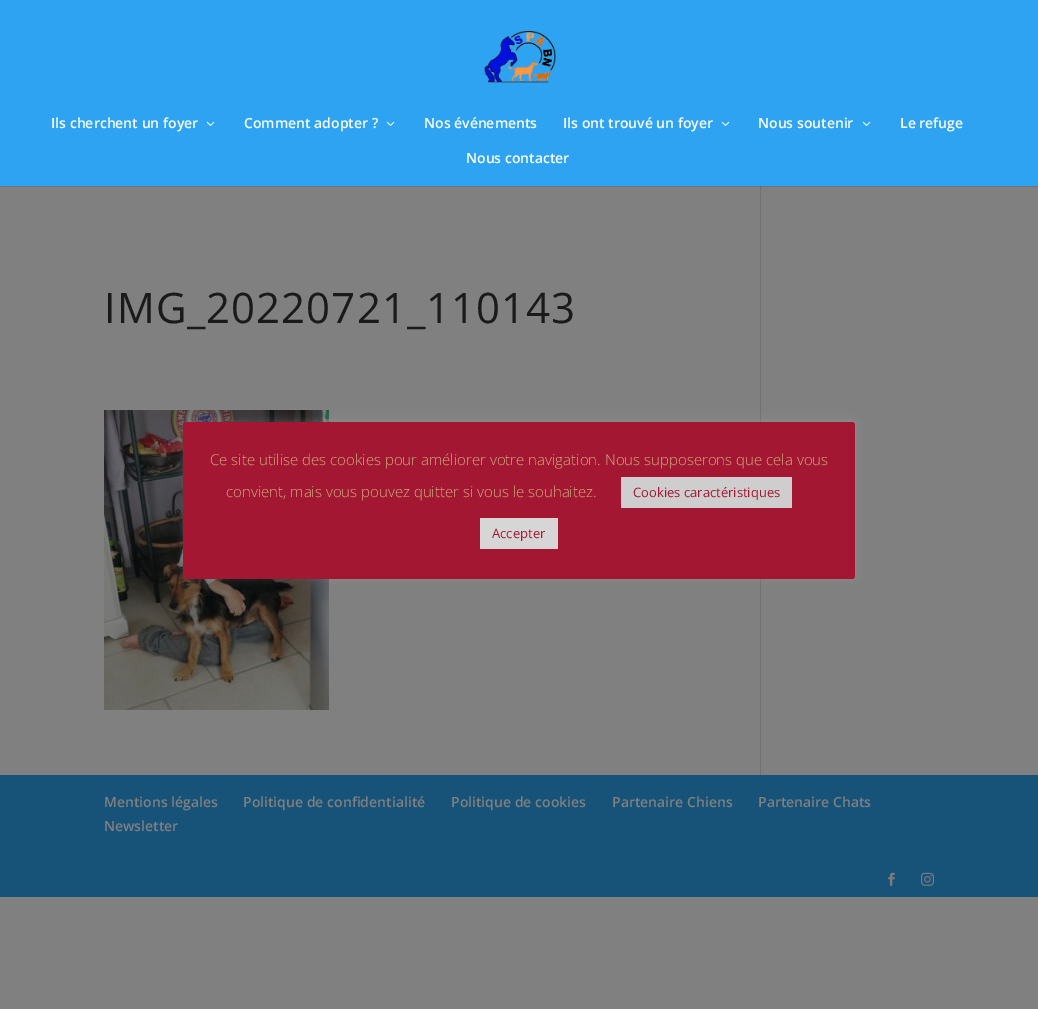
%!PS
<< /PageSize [1038 1009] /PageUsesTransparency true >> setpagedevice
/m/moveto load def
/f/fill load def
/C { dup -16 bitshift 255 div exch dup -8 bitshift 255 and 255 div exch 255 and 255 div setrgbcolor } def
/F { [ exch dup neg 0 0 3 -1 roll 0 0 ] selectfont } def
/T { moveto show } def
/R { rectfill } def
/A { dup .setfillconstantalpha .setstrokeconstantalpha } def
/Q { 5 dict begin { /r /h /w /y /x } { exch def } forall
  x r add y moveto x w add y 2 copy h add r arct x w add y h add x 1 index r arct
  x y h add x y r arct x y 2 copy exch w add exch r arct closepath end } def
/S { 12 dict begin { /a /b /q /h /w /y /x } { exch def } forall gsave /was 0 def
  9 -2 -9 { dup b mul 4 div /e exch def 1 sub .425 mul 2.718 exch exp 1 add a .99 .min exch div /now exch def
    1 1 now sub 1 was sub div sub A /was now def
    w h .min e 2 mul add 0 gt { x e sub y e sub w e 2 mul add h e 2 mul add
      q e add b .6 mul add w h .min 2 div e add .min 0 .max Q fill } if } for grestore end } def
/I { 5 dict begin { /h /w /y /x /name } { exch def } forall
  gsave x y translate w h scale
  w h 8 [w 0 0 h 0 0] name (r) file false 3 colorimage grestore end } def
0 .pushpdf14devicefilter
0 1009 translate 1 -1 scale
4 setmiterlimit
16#808080 C
0 0 1038 1009 R
16#737373 C
0 186 1038 1 R
16#2EA3F2 C
0 0 1038 186 R
(1.rgb) 484 31 72 52 I
/OpenSans-SemiBold 14 F
16#FFFFFF C
(Ils cherchent un foyer) 51 128 T
(2.rgb) 206 121 9 5 I
(Comment adopter ?) 244 128 T
(2.rgb) 386 121 9 5 I
(Nos événements) 424 128 T
(Ils ont trouvé un foyer) 563 128 T
(2.rgb) 721 121 9 5 I
(Nous soutenir) 758 128 T
(2.rgb) 862 121 9 5 I
(Le refuge) 900 128 T
(Nous contacter) 466 163 T
/OpenSans-Regular 42 F
16#1A1A1A C
104 323 m 1 0 (IMG_20220721_110143) ashow
(3.rgb) 104 410 225 300 I
16#717171 C
760 186 1 589 R
16#666666 C
760 186 1 1 R
16#175279 C
0 775 1038 122 R
/OpenSans-SemiBold 14 F
16#808080 C
(Mentions légales) 104 807 T
(Politique de confidentialité) 243 807 T
(Politique de cookies) 451 807 T
(Partenaire Chiens) 612 807 T
(Partenaire Chats) 758 807 T
(Newsletter) 104 831 T
(4.rgb) 888 872 7 14 I
(5.rgb) 921 872 13 14 I
16#ACABAB C
183 421 672 157 3 5 .3 S
16#A31732 C
183 422 672 157 3 Q f
/OpenSans-Light 15 F
16#CDAB7B C
(Ce site utilise des cookies pour améliorer votre navigation. Nous supposerons que cela vous) 210 465 T
(convient, mais vous pouvez quitter si vous le souhaitez.) 226 497 T
16#CECECE C
621 477 171 31 R
/OpenSans-Regular 13 F
16#A31732 C
(Cookies caractéristiques) 633 497 T
16#D6D6D6 C
480 518 78 31 R
16#A31732 C
(Accepter) 492 538 T
.poppdf14devicefilter showpage
